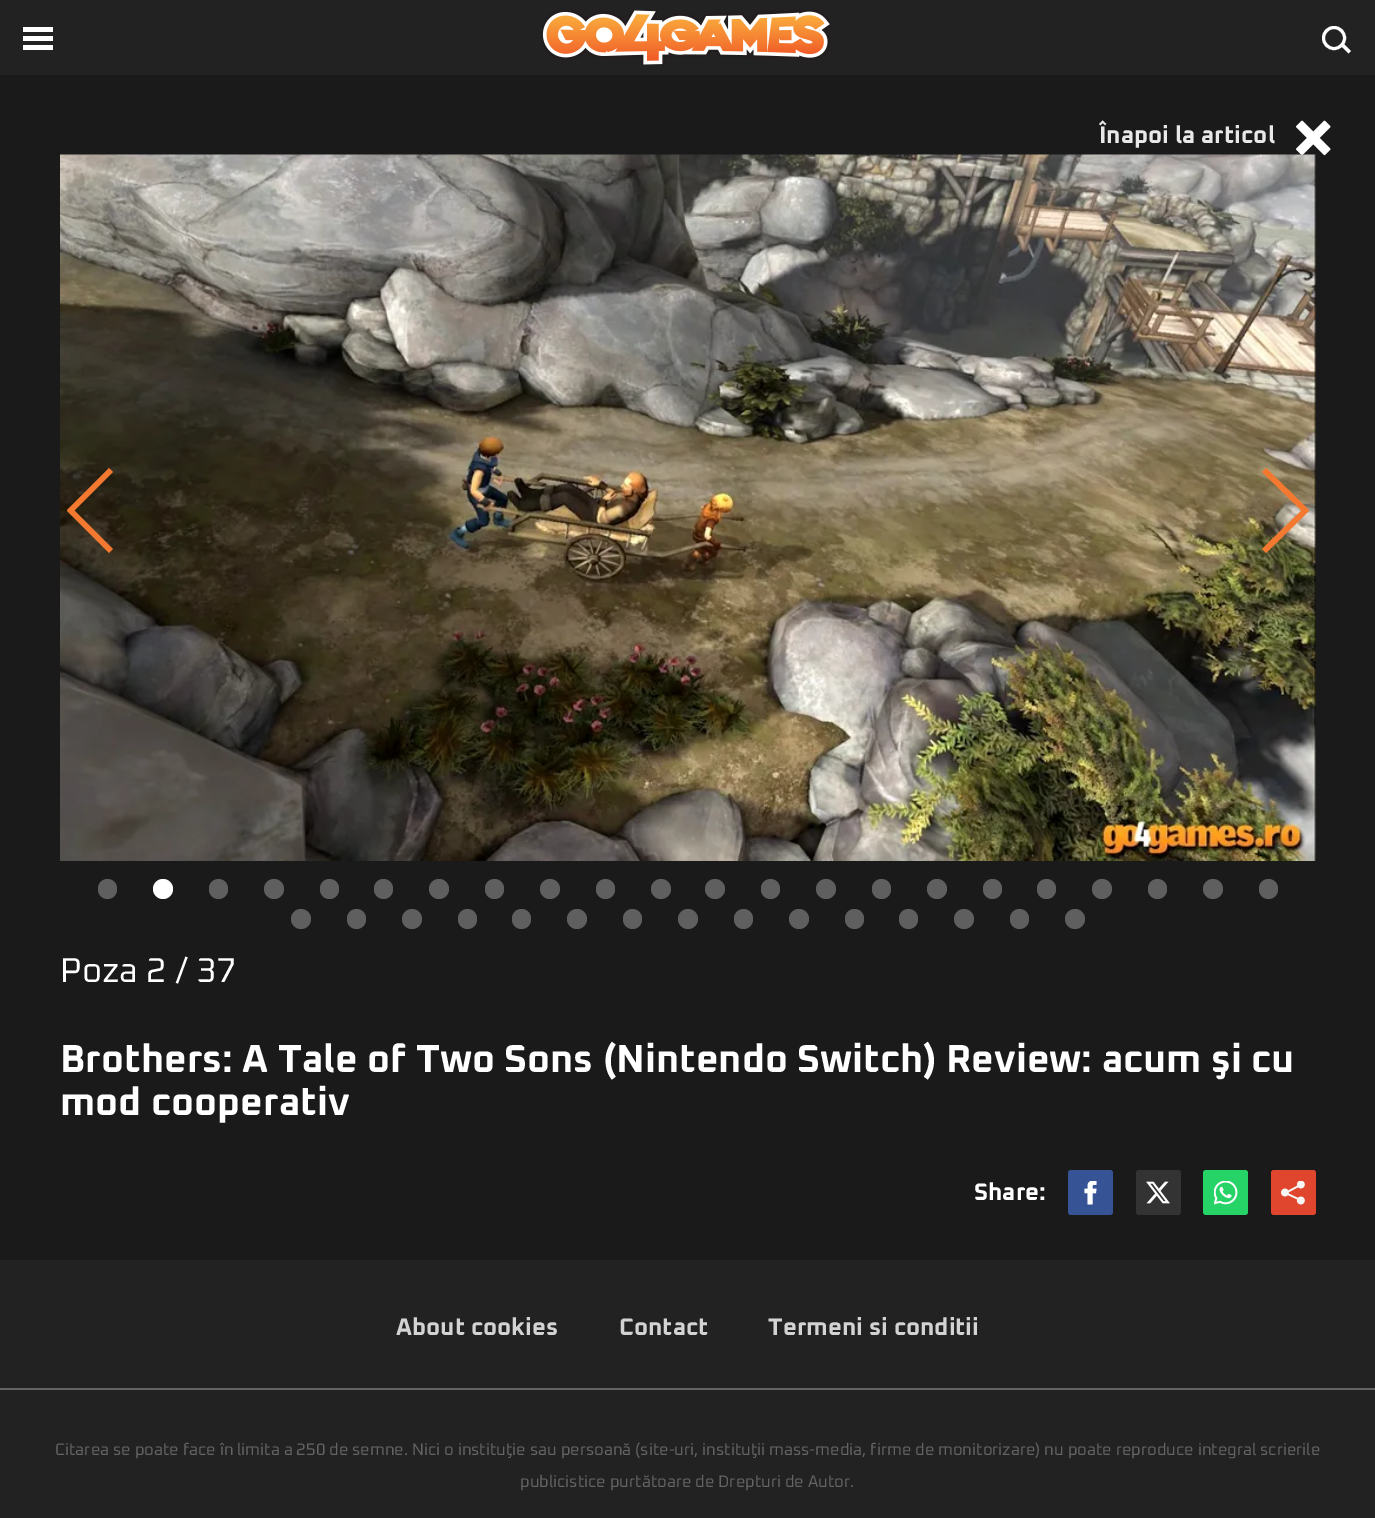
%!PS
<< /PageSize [1375 1518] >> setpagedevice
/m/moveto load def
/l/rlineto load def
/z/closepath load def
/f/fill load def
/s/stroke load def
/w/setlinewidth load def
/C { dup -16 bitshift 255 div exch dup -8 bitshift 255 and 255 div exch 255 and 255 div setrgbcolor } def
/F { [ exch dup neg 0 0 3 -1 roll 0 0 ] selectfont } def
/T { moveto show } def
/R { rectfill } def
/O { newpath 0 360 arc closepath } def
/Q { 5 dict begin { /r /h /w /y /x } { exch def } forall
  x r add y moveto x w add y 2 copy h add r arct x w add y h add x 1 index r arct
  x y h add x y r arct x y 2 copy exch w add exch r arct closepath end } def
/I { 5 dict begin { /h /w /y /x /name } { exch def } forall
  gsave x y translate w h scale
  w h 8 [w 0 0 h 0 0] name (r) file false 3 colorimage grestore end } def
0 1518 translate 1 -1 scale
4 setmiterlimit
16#222222 C
0 0 1375 1518 R
16#FFFFFF C
23 36 30 5 R
23 27 30 5 R
23 45 30 5 R
(1.rgb) 542 10 288 55 I
3 w
1334 38 10.5 O s
1340 45 m 2.5 -2.5 l 8.5 8.5 l -2.5 2.5 l z f
16#1A1A1A C
0 75 1375 1185 R
/Oxanium-Bold 24 F
16#E8E8E8 C
(Înapoi la articol) 1099 143 T
(2.rgb) 1296 120 35 36 I
(3.rgb) 60 154 1256 707 I
16#F37930 C
67 510 m 42 -42 l 4 4 l -42 42 l z f
71 507 m 42 42 l -4 4 l -42 -42 l z f
1266 468 m 43 42 l -4 4 l -43 -42 l z f
1262 549 m 43 -42 l 4 4 l -43 42 l z f
16#5F5F5F C
98 879 19 20 9.5 Q f
16#FFFFFF C
163 889 10 O f
16#5F5F5F C
209 879 19 20 9.5 Q f
274 889 10 O f
320 879 19 20 9.5 Q f
374 879 19 20 9.5 Q f
439 889 10 O f
485 879 19 20 9.5 Q f
550 889 10 O f
596 879 19 20 9.5 Q f
661 889 10 O f
715 889 10 O f
761 879 19 20 9.5 Q f
826 889 10 O f
872 879 19 20 9.5 Q f
937 889 10 O f
983 879 19 20 9.5 Q f
1037 879 19 20 9.5 Q f
1102 889 10 O f
1148 879 19 20 9.5 Q f
1213 889 10 O f
1259 879 19 20 9.5 Q f
301 919 10 O f
347 909 19 20 9.5 Q f
412 919 10 O f
458 909 19 20 9.5 Q f
512 909 19 20 9.5 Q f
577 919 10 O f
623 909 19 20 9.5 Q f
688 919 10 O f
734 909 19 20 9.5 Q f
799 919 10 O f
845 909 19 20 9.5 Q f
899 909 19 20 9.5 Q f
964 919 10 O f
1010 909 19 20 9.5 Q f
1075 919 10 O f
/Oxanium-Regular 34.5 F
16#FFFFFF C
(Poza 2 / 37) 60 982 T
/Oxanium-Bold 39 F
(Brothers: A Tale of Two Sons \(Nintendo Switch\) Review: acum şi cu) 60 1072 T
(mod cooperativ) 60 1115 T
/Oxanium-Bold 24 F
(Share:) 974 1200 T
16#365396 C
1068 1170 45 45 3 Q f
(4.rgb) 1084 1181 13 24 I
16#333333 C
1136 1170 45 45 3 Q f
(5.rgb) 1146 1181 24 23 I
16#25D366 C
1203 1170 45 45 3 Q f
(6.rgb) 1214 1181 24 24 I
16#E0462E C
1271 1170 45 45 3 Q f
(7.rgb) 1281 1181 24 24 I
16#D3D3D3 C
(About cookies) 396 1335 T
(Contact) 619 1335 T
(Termeni si conditii) 768 1335 T
16#646464 C
0 1388 1375 2 R
/Oxanium-Regular 16.5 F
(Citarea se poate face în limita a 250 de semne. Nici o instituţie sau persoană \(site-uri, instituţii mass-media, firme de monitorizare\) nu poate reproduce integral scrierile) 55 1455 T
(publicistice purtătoare de Drepturi de Autor.) 520 1487 T
showpage
